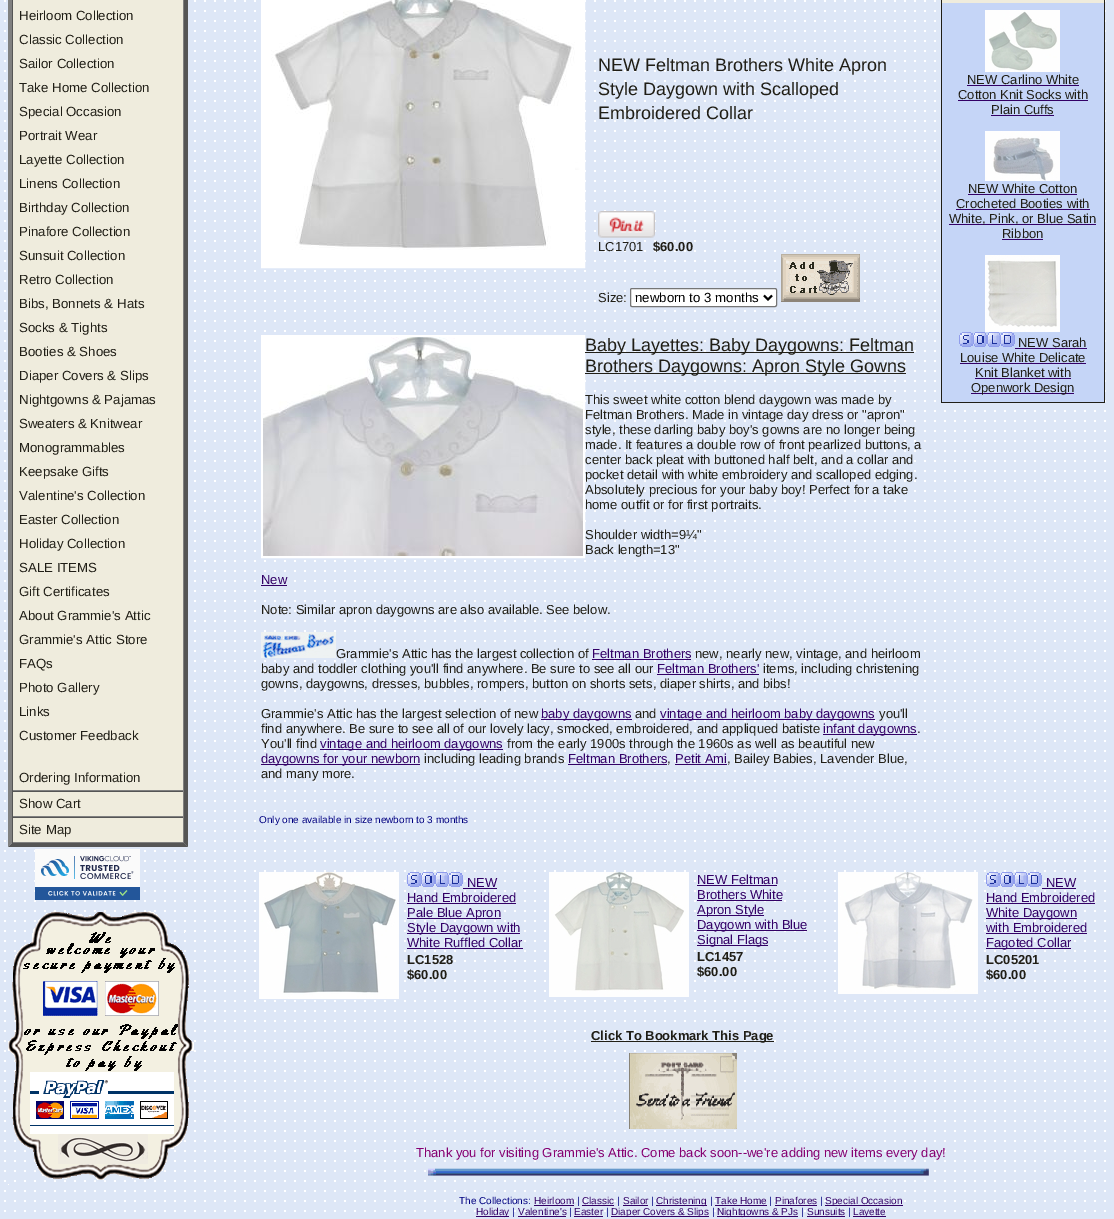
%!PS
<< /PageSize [1114 1219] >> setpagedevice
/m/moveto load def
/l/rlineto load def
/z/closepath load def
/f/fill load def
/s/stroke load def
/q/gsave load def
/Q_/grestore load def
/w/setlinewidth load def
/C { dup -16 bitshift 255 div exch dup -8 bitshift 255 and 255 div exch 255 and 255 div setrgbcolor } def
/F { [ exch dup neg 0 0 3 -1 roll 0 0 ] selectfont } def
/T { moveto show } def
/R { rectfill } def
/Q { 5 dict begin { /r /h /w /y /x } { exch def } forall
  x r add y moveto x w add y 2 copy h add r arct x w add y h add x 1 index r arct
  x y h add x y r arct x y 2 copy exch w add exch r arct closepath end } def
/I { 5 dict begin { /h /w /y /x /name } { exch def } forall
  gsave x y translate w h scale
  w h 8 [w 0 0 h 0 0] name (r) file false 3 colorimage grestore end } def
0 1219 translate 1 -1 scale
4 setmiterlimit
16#FFFFFF C
0 0 1114 1219 R
(1.rgb) 0 0 1114 1219 I
16#555555 C
188 -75 m 0 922 l -4 -4 l 0 -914 l z f
188 847 m -180 0 l 4 -4 l 172 0 l z f
16#808080 C
8 847 m 0 -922 l 4 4 l 0 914 l z f
16#EFECDD C
13 0 170 790 R
16#808080 C
183 0 1 791 R
12 790 172 1 R
16#555555 C
12 0 1 791 R
/LiberationSans-Regular 13.25 F
16#201E16 C
(Heirloom Collection) 19 20 T
(Classic Collection) 19 44 T
(Sailor Collection) 19 68 T
(Take Home Collection) 19 92 T
(Special Occasion) 19 116 T
(Portrait Wear) 19 140 T
(Layette Collection) 19 164 T
(Linens Collection) 19 188 T
(Birthday Collection) 19 212 T
(Pinafore Collection) 19 236 T
(Sunsuit Collection) 19 260 T
(Retro Collection) 19 284 T
(Bibs, Bonnets & Hats) 19 308 T
(Socks & Tights) 19 332 T
(Booties & Shoes) 19 356 T
(Diaper Covers & Slips) 19 380 T
(Nightgowns & Pajamas) 19 404 T
(Sweaters & Knitwear) 19 428 T
(Monogrammables) 19 452 T
(Keepsake Gifts) 19 476 T
(Valentine's Collection) 19 500 T
(Easter Collection) 19 524 T
(Holiday Collection) 19 548 T
(SALE ITEMS) 19 572 T
(Gift Certificates) 19 596 T
(About Grammie's Attic) 19 620 T
(Grammie's Attic Store) 19 644 T
(FAQs) 19 668 T
(Photo Gallery) 19 692 T
(Links) 19 716 T
(Customer Feedback) 19 740 T
(Ordering Information) 19 782 T
16#EFECDD C
13 792 170 24 R
16#555555 C
12 791 172 1 R
16#808080 C
183 791 1 26 R
12 816 172 1 R
16#555555 C
12 791 1 26 R
16#201E16 C
(Show Cart) 19 808 T
16#EFECDD C
13 818 170 24 R
16#555555 C
12 817 172 1 R
16#808080 C
183 817 1 26 R
12 842 172 1 R
16#555555 C
12 817 1 26 R
16#201E16 C
(Site Map) 19 834 T
(2.rgb) 35 849 105 51 I
(3.rgb) 8 911 186 274 I
16#FFFFFF C
2 w
262 -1 322 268 rectstroke
(4.rgb) 263 0 320 266 I
/LiberationSans-Regular 18 F
16#201E16 C
(NEW Feltman Brothers White Apron) 598 71 T
(Style Daygown with Scalloped) 598 95 T
(Embroidered Collar) 598 119 T
(5.rgb) 598 211 57 27 I
/LiberationSans-Regular 13 F
(LC1701) 598 251 T
/LiberationSans-Bold 13 F
($60.00) 653 251 T
/LiberationSans-Regular 13 F
(Size:) 598 302 T
16#FFFFFF C
630.5 288.5 146 18 1.5 Q q f Q_
16#767676 C
1 w
s
16#000000 C
2 w
764 295.5 m 4 4 l 4 -4 l s
/LiberationSans-Regular 13.25 F
(newborn to 3 months) 635 302 T
(6.rgb) 781 254 79 48 I
16#FFFFFF C
262 336 322 221 rectstroke
(7.rgb) 263 337 320 219 I
16#201E16 C
585 352 329 1 R
/LiberationSans-Regular 18 F
(Baby Layettes: Baby Daygowns: Feltman) 585 351 T
585 373 321 1 R
(Brothers Daygowns: Apron Style Gowns) 585 372 T
/LiberationSans-Regular 13 F
(This sweet white cotton blend daygown was made by) 585 404 T
(Feltman Brothers. Made in vintage day dress or "apron") 585 419 T
(style, these darling baby boy's gowns are no longer being) 585 434 T
(made. It features a double row of front pearlized buttons, a) 585 449 T
(center back pleat with buttoned half belt, and a collar and) 585 464 T
(pocket detail with white embroidery and scalloped edging.) 585 479 T
(Absolutely precious for your baby boy! Perfect for a take) 585 494 T
(home outfit or for first portraits.) 585 509 T
(Shoulder width=9¼") 585 539 T
(Back length=13") 585 554 T
16#330066 C
(New) 261 584 T
261 585 26 1 R
16#201E16 C
(Note: Similar apron daygowns are also available. See below.) 261 614 T
(8.rgb) 261 632 75 26 I
(Grammie's Attic has the largest collection of) 336 658 T
16#330066 C
(Feltman Brothers) 592 658 T
592 659 99 1 R
16#201E16 C
(new, nearly new, vintage, and heirloom) 695 658 T
(baby and toddler clothing you'll find anywhere. Be sure to see all our) 261 673 T
16#330066 C
(Feltman Brothers') 657 673 T
657 674 102 1 R
16#201E16 C
(items, including christening) 763 673 T
(gowns, daygowns, dresses, bubbles, rompers, button on shorts sets, diaper shirts, and bibs!) 261 688 T
(Grammie's Attic has the largest selection of new) 261 718 T
16#330066 C
541 719 91 1 R
(baby daygowns) 541 718 T
16#201E16 C
(and) 635 718 T
16#330066 C
660 719 215 1 R
(vintage and heirloom baby daygowns) 660 718 T
16#201E16 C
(you'll) 879 718 T
(find anywhere. Be sure to see all of our lovely lacy, smocked, embroidered, and appliqued batiste) 261 733 T
16#330066 C
823 734 94 1 R
(infant daygowns) 823 733 T
16#201E16 C
(.) 917 733 T
(You'll find) 261 748 T
16#330066 C
320 749 183 1 R
(vintage and heirloom daygowns) 320 748 T
16#201E16 C
(from the early 1900s through the 1960s as well as beautiful new) 507 748 T
16#330066 C
261 764 159 1 R
(daygowns for your newborn) 261 763 T
16#201E16 C
(including leading brands) 424 763 T
16#330066 C
(Feltman Brothers) 568 763 T
568 764 99 1 R
16#201E16 C
(,) 667 763 T
16#330066 C
(Petit Ami) 675 763 T
675 764 52 1 R
16#201E16 C
(, Bailey Babies, Lavender Blue,) 727 763 T
(and many more.) 261 778 T
941 0 164 403 R
16#EFECDD C
942 0 162 3 R
16#C5D5F7 C
942 3 162 399 R
(9.rgb) 985 10 75 62 I
16#201E16 C
(NEW Carlino White) 967 84 T
16#330066 C
967 85 112 1 R
16#201E16 C
(Cotton Knit Socks with) 958 99 T
16#330066 C
958 100 130 1 R
16#201E16 C
(Plain Cuffs) 991 114 T
16#330066 C
991 115 63 1 R
(10.rgb) 985 131 75 50 I
16#201E16 C
(NEW White Cotton) 968 193 T
16#330066 C
968 194 109 1 R
16#201E16 C
(Crocheted Booties with) 956 208 T
16#330066 C
956 209 134 1 R
949 224 147 1 R
16#201E16 C
(White, Pink, or Blue Satin) 949 223 T
(Ribbon) 1002 238 T
16#330066 C
1002 239 41 1 R
(11.rgb) 985 255 75 77 I
(12.rgb) 959 332 56 15 I
16#201E16 C
(NEW Sarah) 1018 347 T
16#330066 C
1015 348 72 1 R
16#201E16 C
(Louise White Delicate) 960 362 T
16#330066 C
960 363 126 1 R
16#201E16 C
(Knit Blanket with) 975 377 T
16#330066 C
975 378 96 1 R
971 393 103 1 R
16#201E16 C
(Openwork Design) 971 392 T
/LiberationSans-Regular 10 F
16#000080 C
(Only one available in size newborn to 3 months) 259 823 T
(13.rgb) 259 872 140 127 I
(14.rgb) 407 872 56 15 I
/LiberationSans-Regular 13 F
16#330066 C
(NEW) 467 887 T
463 888 34 1 R
(Hand Embroidered) 407 902 T
407 903 109 1 R
407 918 94 1 R
(Pale Blue Apron) 407 917 T
407 933 113 1 R
(Style Daygown with) 407 932 T
(White Ruffled Collar) 407 947 T
407 948 116 1 R
/LiberationSans-Bold 13 F
16#201E16 C
(LC1528) 407 964 T
($60.00) 407 979 T
(15.rgb) 549 872 140 125 I
/LiberationSans-Regular 13 F
16#330066 C
(NEW Feltman) 697 884 T
697 885 80 1 R
(Brothers White) 697 899 T
697 900 85 1 R
697 915 67 1 R
(Apron Style) 697 914 T
697 930 110 1 R
(Daygown with Blue) 697 929 T
697 945 71 1 R
(Signal Flags) 697 944 T
/LiberationSans-Bold 13 F
16#201E16 C
(LC1457) 697 961 T
($60.00) 697 976 T
(16.rgb) 838 872 140 122 I
(14.rgb) 986 872 56 15 I
/LiberationSans-Regular 13 F
16#330066 C
(NEW) 1046 887 T
1042 888 34 1 R
(Hand Embroidered) 986 902 T
986 903 109 1 R
986 918 91 1 R
(White Daygown) 986 917 T
(with Embroidered) 986 932 T
986 933 101 1 R
986 948 85 1 R
(Fagoted Collar) 986 947 T
/LiberationSans-Bold 13 F
16#201E16 C
(LC05201) 986 964 T
($60.00) 986 979 T
591 1041 183 1 R
(Click To Bookmark This Page) 591 1040 T
(17.rgb) 629 1053 108 76 I
/LiberationSans-Regular 13 F
16#860071 C
(Thank you for visiting Grammie's Attic. Come back soon--we're adding new items every day!) 416 1157 T
(18.rgb) 428 1168 501 8 I
/LiberationSans-Regular 10 F
16#000080 C
(The Collections:) 459 1204 T
16#330066 C
(Heirloom) 534 1204 T
534 1205 40 1 R
16#000080 C
(|) 577 1204 T
16#330066 C
(Classic) 582 1204 T
582 1205 32 1 R
16#000080 C
(|) 617 1204 T
16#330066 C
(Sailor) 623 1204 T
623 1205 25 1 R
16#000080 C
(|) 651 1204 T
16#330066 C
656 1205 51 1 R
(Christening) 656 1204 T
16#000080 C
(|) 710 1204 T
16#330066 C
(Take Home) 715 1204 T
715 1205 52 1 R
16#000080 C
(|) 769 1204 T
16#330066 C
(Pinafores) 775 1204 T
775 1205 42 1 R
16#000080 C
(|) 820 1204 T
16#330066 C
825 1205 78 1 R
(Special Occasion) 825 1204 T
476 1216 33 1 R
(Holiday) 476 1215 T
16#000080 C
(|) 512 1215 T
16#330066 C
(Valentine's) 518 1215 T
518 1216 48 1 R
16#000080 C
(|) 569 1215 T
16#330066 C
(Easter) 574 1215 T
574 1216 29 1 R
16#000080 C
(|) 606 1215 T
16#330066 C
611 1216 98 1 R
(Diaper Covers & Slips) 611 1215 T
16#000080 C
(|) 712 1215 T
16#330066 C
717 1216 81 1 R
(Nightgowns & PJs) 717 1215 T
16#000080 C
(|) 801 1215 T
16#330066 C
(Sunsuits) 807 1215 T
807 1216 38 1 R
16#000080 C
(|) 848 1215 T
16#330066 C
853 1216 33 1 R
(Layette) 853 1215 T
showpage
